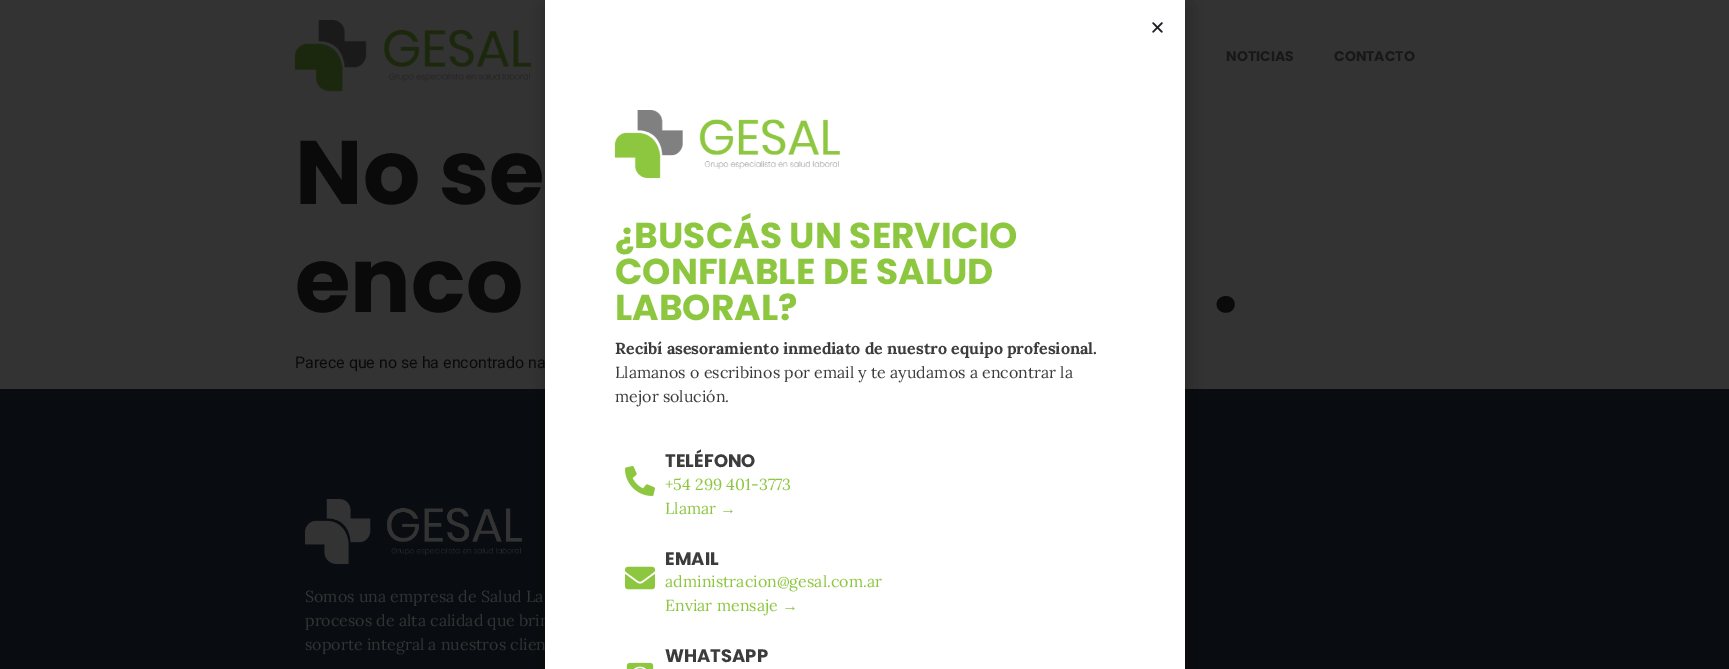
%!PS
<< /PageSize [1729 669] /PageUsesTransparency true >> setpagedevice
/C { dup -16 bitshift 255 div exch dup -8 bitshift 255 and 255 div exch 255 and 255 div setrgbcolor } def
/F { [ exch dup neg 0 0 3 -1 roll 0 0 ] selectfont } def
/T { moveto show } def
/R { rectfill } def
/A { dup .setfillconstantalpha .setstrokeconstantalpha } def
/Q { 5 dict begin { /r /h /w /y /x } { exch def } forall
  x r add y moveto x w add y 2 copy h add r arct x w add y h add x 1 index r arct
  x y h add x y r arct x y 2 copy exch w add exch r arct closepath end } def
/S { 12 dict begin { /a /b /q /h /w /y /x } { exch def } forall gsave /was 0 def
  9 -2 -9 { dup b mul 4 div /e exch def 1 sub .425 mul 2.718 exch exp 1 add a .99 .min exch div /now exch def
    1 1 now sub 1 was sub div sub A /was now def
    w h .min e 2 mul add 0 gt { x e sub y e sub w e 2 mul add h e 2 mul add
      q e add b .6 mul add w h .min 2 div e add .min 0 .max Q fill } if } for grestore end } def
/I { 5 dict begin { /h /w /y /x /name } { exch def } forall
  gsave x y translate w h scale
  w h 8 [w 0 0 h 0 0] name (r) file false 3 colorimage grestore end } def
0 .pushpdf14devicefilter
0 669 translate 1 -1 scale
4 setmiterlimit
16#333333 C
0 0 1729 669 R
(1.rgb) 294 20 238 72 I
/Poppins-Bold 14 F
16#181818 C
(NOTICIAS) 1226 61 T
(CONTACTO) 1334 61 T
/Poppins-Bold 90 F
16#0A0A0A C
(No se) 295 204 T
(enco) 295 312 T
(.) 1213 312 T
/Roboto-Regular 16 F
(Parece que no se ha encontrado na) 295 368 T
16#090C10 C
0 389 1729 280 R
(2.rgb) 305 499 217 65 I
/Lora-Regular 16 F
16#333333 C
(Somos una empresa de Salud La) 305 602 T
(procesos de alta calidad que brin) 305 626 T
(soporte integral a nuestros clien) 305 650 T
16#000000 C
544 5 646 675 0 11.5 .2 S
16#FFFFFF C
545 0 640 669 R
(3.rgb) 1152 22 11 11 I
(4.rgb) 614 110 226 68 I
/Poppins-Bold 36 F
16#8DC63F C
(¿BUSCÁS UN SERVICIO) 615 248 T
(CONFIABLE DE SALUD) 615 284 T
(LABORAL?) 615 320 T
/Lora-Bold 16 F
16#3C3C3C C
(Recibí asesoramiento inmediato de nuestro equipo profesional.) 615 354 T
/Lora-Regular 16 F
(Llamanos o escribinos por email y te ayudamos a encontrar la) 615 378 T
(mejor solución.) 615 402 T
(5.rgb) 625 466 30 30 I
/Poppins-Bold 18 F
(TELÉFONO) 665 467 T
/Lora-Regular 16 F
16#8DC63F C
(+54 299 401-3773) 665 490 T
(Llamar) 665 514 T
/LiberationSans-Regular 16 F
(→) 720 514 T
(6.rgb) 625 566 30 24 I
/Poppins-Bold 18 F
16#3C3C3C C
(EMAIL) 665 565 T
/Lora-Regular 16 F
16#8DC63F C
(administracion@gesal.com.ar) 665 587 T
(Enviar mensaje) 665 611 T
/LiberationSans-Regular 16 F
(→) 782 611 T
/Poppins-Bold 18 F
16#3C3C3C C
(WHATSAPP) 665 662 T
(7.rgb) 626 662 28 7 I
.poppdf14devicefilter showpage
